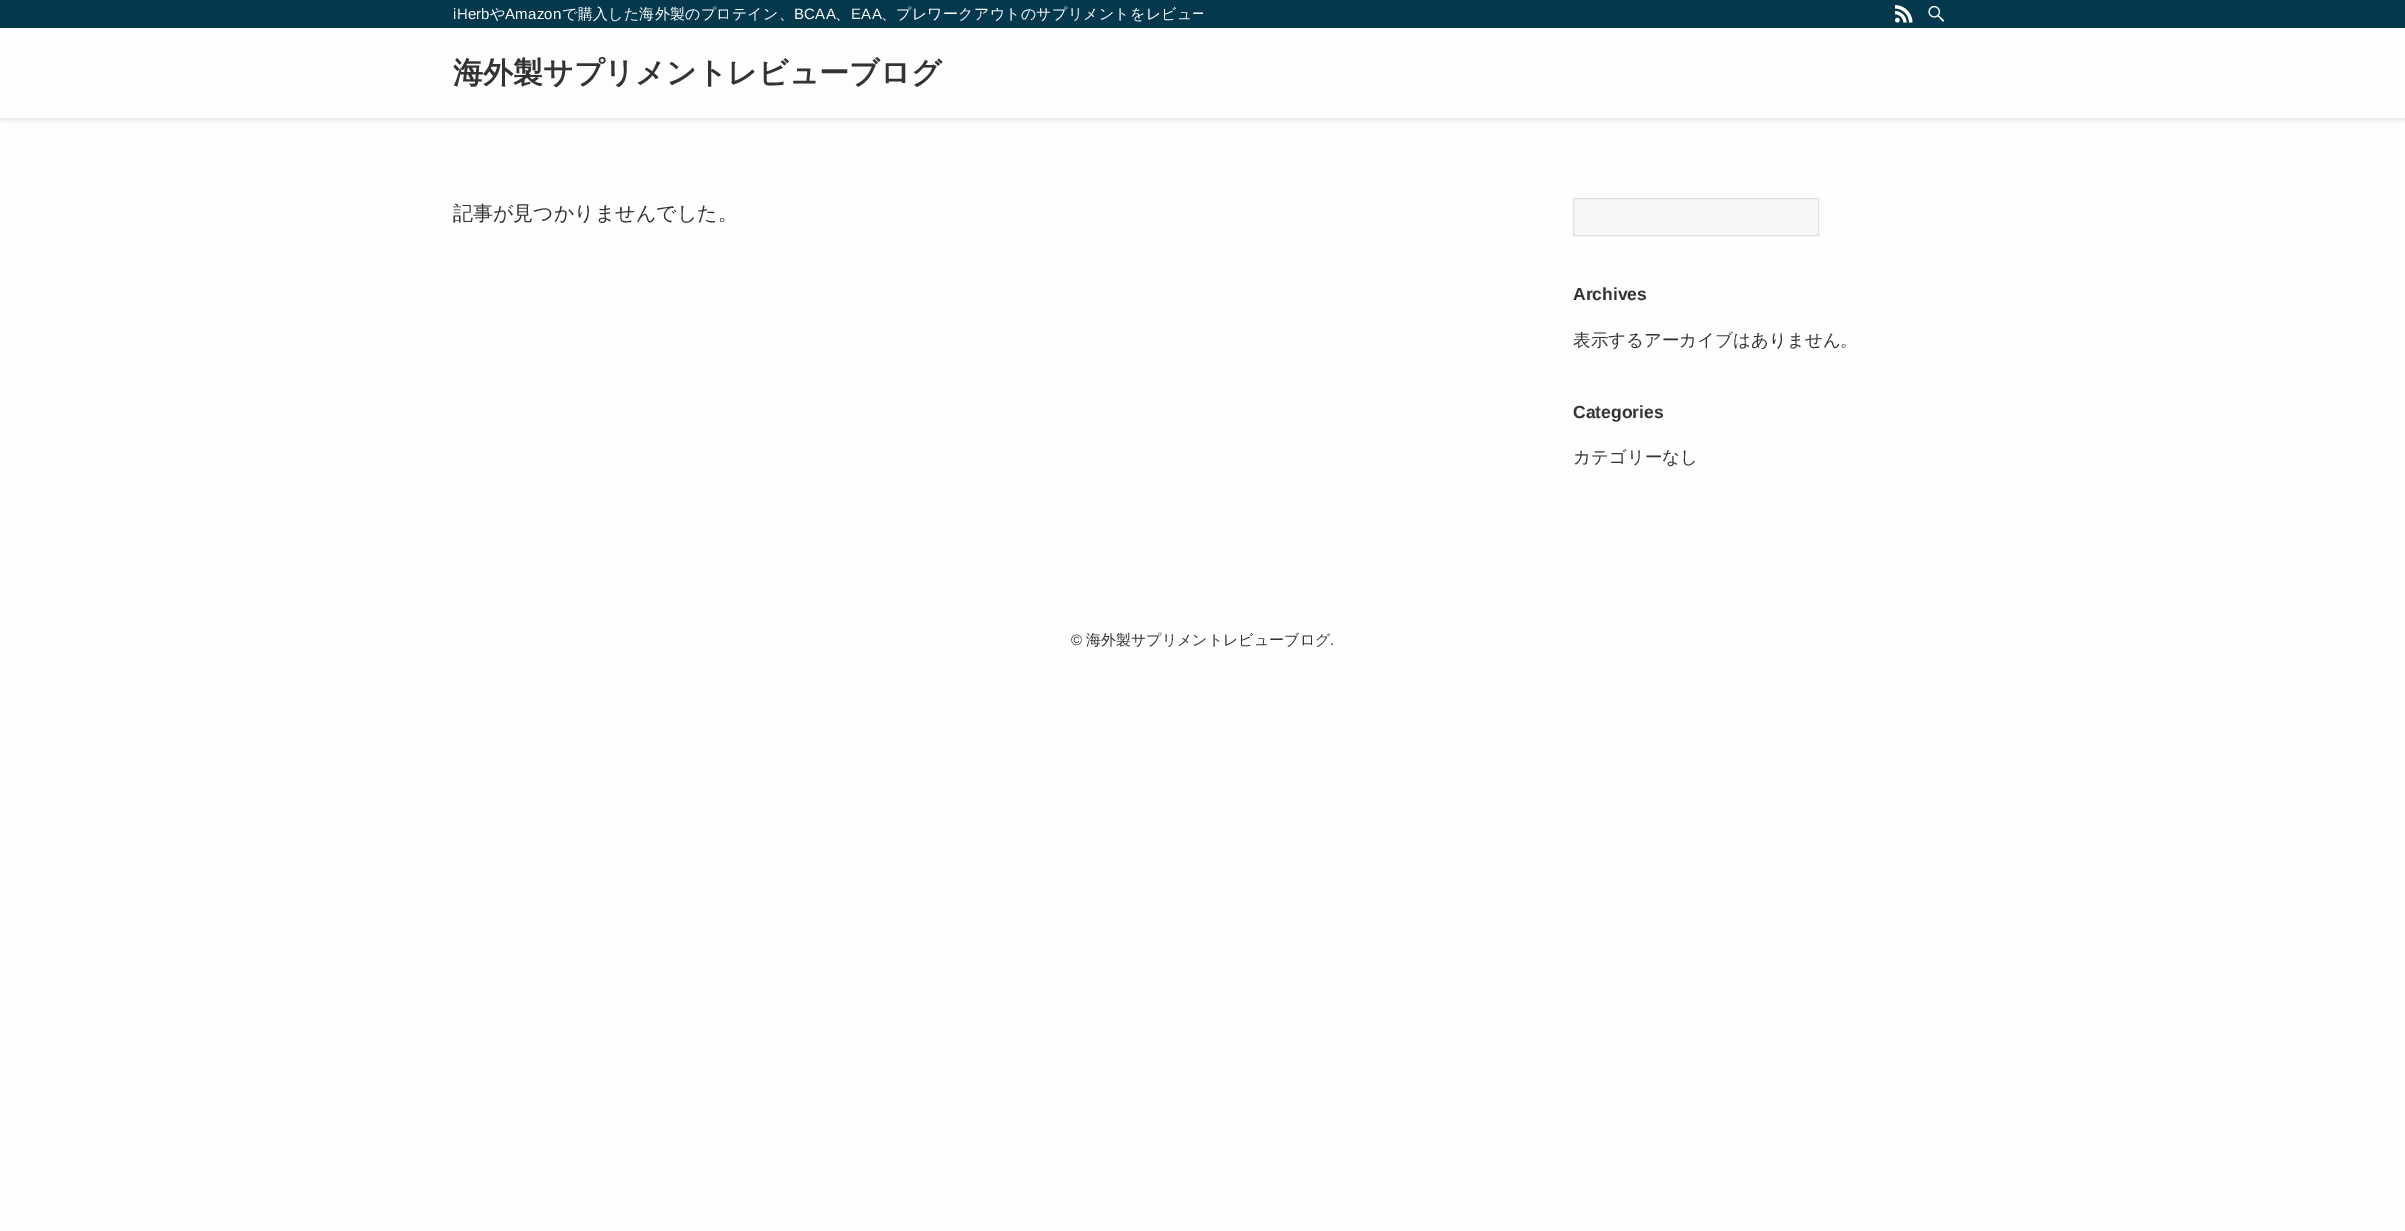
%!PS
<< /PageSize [2405 1231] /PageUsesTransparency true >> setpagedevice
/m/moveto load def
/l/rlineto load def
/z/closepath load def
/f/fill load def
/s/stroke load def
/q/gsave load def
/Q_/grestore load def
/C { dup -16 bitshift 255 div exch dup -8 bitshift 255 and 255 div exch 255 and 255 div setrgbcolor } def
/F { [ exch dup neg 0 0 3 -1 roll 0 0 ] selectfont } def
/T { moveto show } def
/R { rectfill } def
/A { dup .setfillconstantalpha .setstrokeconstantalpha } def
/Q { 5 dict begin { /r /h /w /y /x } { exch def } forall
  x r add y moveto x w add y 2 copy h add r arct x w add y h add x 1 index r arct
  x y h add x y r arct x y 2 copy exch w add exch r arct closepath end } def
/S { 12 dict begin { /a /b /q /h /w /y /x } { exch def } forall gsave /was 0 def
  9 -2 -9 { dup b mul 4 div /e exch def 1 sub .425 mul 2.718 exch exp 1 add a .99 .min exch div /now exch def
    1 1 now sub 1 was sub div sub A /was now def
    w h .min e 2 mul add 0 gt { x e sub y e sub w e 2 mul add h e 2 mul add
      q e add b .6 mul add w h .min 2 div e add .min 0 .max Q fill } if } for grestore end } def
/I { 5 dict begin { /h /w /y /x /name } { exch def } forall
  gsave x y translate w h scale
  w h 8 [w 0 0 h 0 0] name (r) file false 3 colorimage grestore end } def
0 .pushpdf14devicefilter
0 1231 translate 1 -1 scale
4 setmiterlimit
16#FDFDFD C
0 0 2405 1231 R
16#000000 C
0 1 2405 118 0 2.5 .12 S
16#FDFDFD C
0 28 2405 90 R
16#04384C C
0 0 2405 28 R
/LiberationSans-Regular 15 F
16#FFFFFF C
453 19 m .25 0 (iHerb) ashow
/WenQuanYiZenHei-Medium 15 F
490 19 m .25 0 (や) ashow
/LiberationSans-Regular 15 F
505 19 m .25 0 (Amazon) ashow
/WenQuanYiZenHei-Medium 15 F
562 19 m .25 0 (で購入した海外製のプロテイン、) ashow
/LiberationSans-Regular 15 F
794 19 m .25 0 (BCAA) ashow
/WenQuanYiZenHei-Medium 15 F
835 19 m .25 0 (、) ashow
/LiberationSans-Regular 15 F
851 19 m .25 0 (EAA) ashow
q
453 0 750 28 rectclip
/WenQuanYiZenHei-Medium 15 F
881 19 m .25 0 (、プレワークアウトのサプリメントをレビュー) ashow
Q_
(1.rgb) 1895 5 18 18 I
(2.rgb) 1928 5 17 17 I
/WenQuanYiZenHei-Bold 30 F
16#333333 C
(海外製サプリメントレビューブログ) 453 83 T
/WenQuanYiZenHei-Medium 20 F
(記事が見つかりませんでした。) 453 220 T
16#F7F7F7 C
1573.5 198.5 m 245 0 l 0 37 l -245 0 l z q f Q_
16#DFDFDF C
s
/LiberationSans-Bold 17.5 F
16#333333 C
(Archives) 1573 300 T
/WenQuanYiZenHei-Medium 17.5 F
(表示するアーカイブはありません。) 1573 346 T
/LiberationSans-Bold 17.5 F
(Categories) 1573 418 T
/WenQuanYiZenHei-Medium 17.5 F
(カテゴリーなし) 1573 463 T
/LiberationSans-Regular 15 F
(©) 1071 645 T
/WenQuanYiZenHei-Medium 15 F
(海外製サプリメントレビューブログ) 1086 645 T
/LiberationSans-Regular 15 F
(.) 1330 645 T
.poppdf14devicefilter showpage
